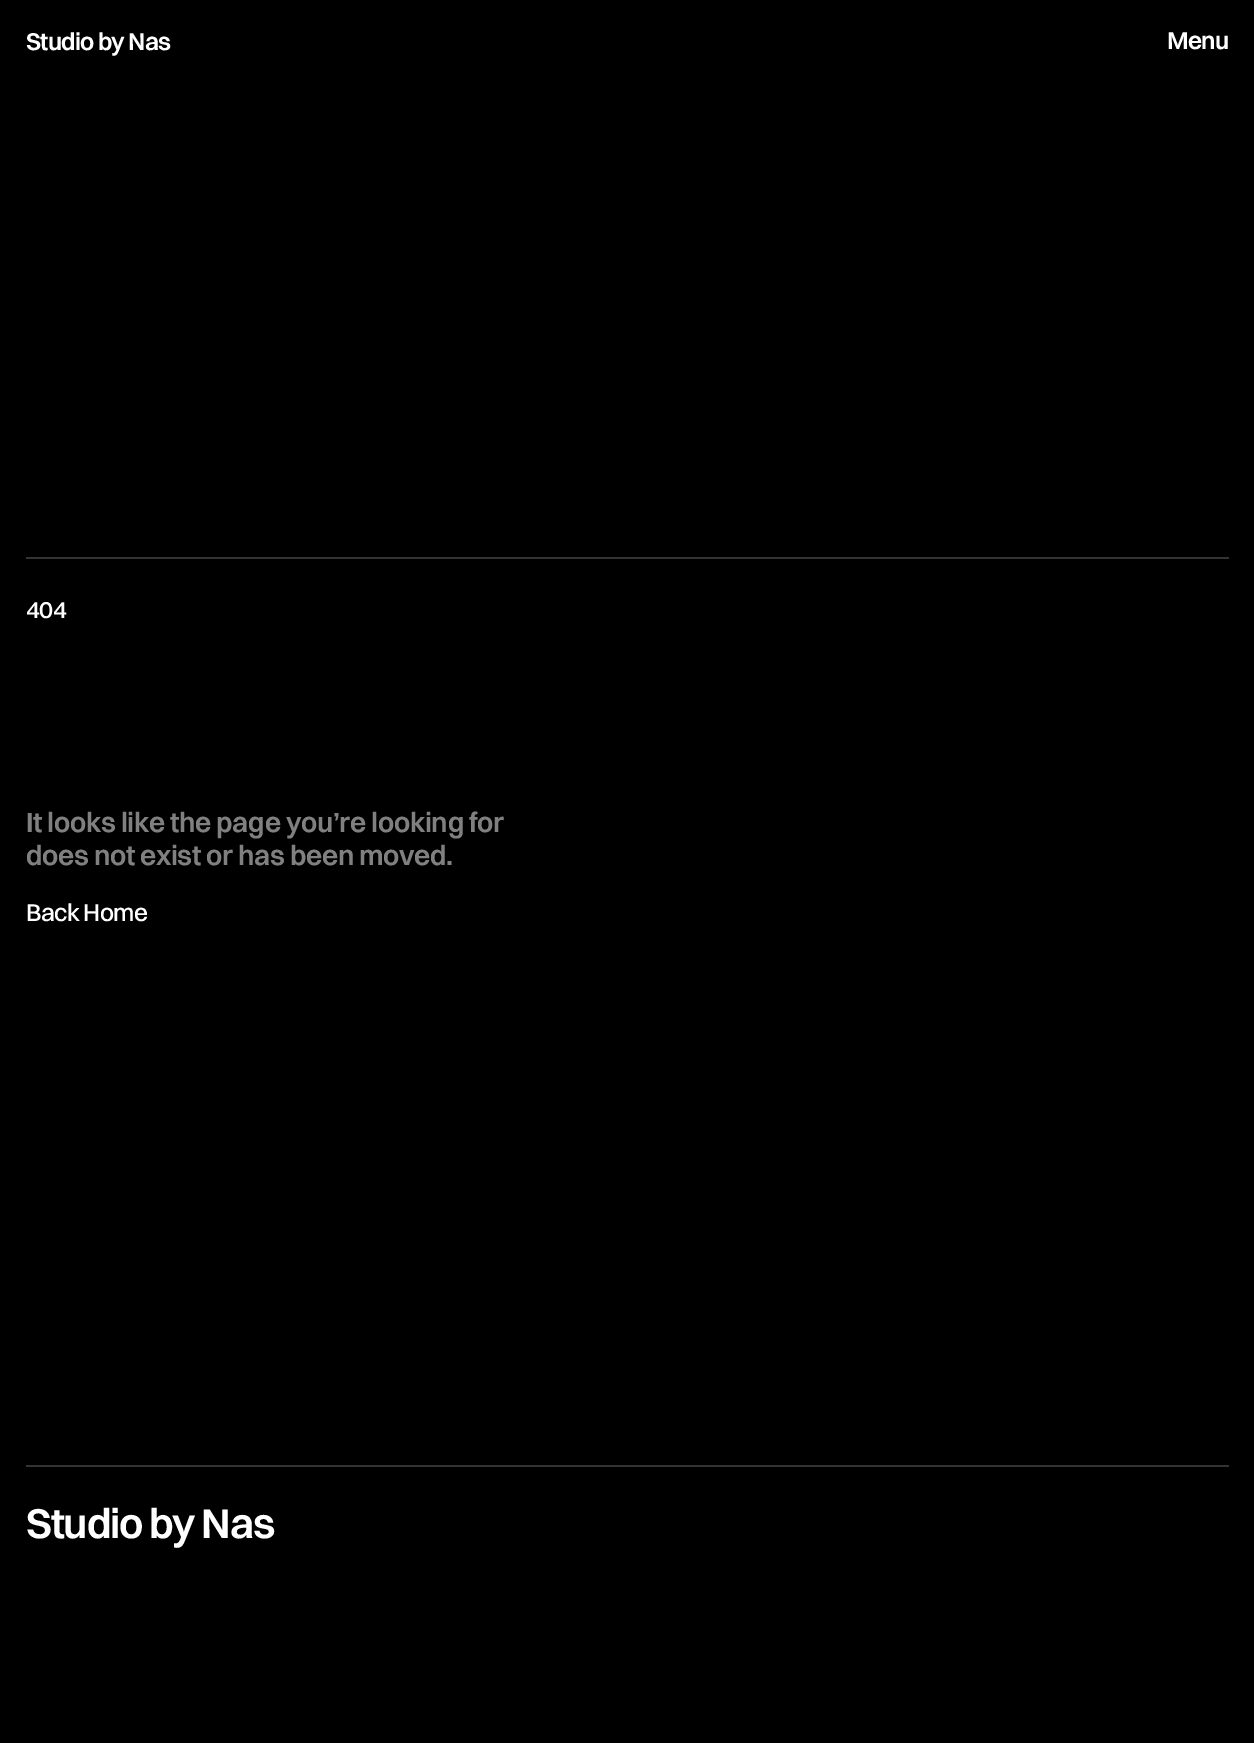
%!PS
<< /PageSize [1254 1743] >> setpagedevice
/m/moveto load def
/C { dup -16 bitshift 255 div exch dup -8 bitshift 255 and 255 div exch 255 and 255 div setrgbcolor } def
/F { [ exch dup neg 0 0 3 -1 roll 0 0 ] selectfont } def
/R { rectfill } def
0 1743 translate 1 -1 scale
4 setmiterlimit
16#000000 C
0 0 1254 1743 R
/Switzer-SemiBold 24.5 F
16#FFFFFF C
26 50 m -.75 0 (Studio by Nas) ashow
1167 49 m -.75 0 (Menu) ashow
16#333333 C
26 557 1203 2 R
/Switzer-Medium 24.5 F
16#FFFFFF C
26 618 m -.75 0 (404) ashow
/Switzer-SemiBold 28 F
16#808080 C
26 832 m -.3 0 (It looks like the page you’re looking for) ashow
26 865 m -.3 0 (does not exist or has been moved.) ashow
/Switzer-Medium 24.5 F
16#FFFFFF C
26 921 m -.75 0 (Back Home) ashow
16#333333 C
26 1465 1203 2 R
/Switzer-SemiBold 42 F
16#FFFFFF C
26 1538 m -1.25 0 (Studio by Nas) ashow
showpage
